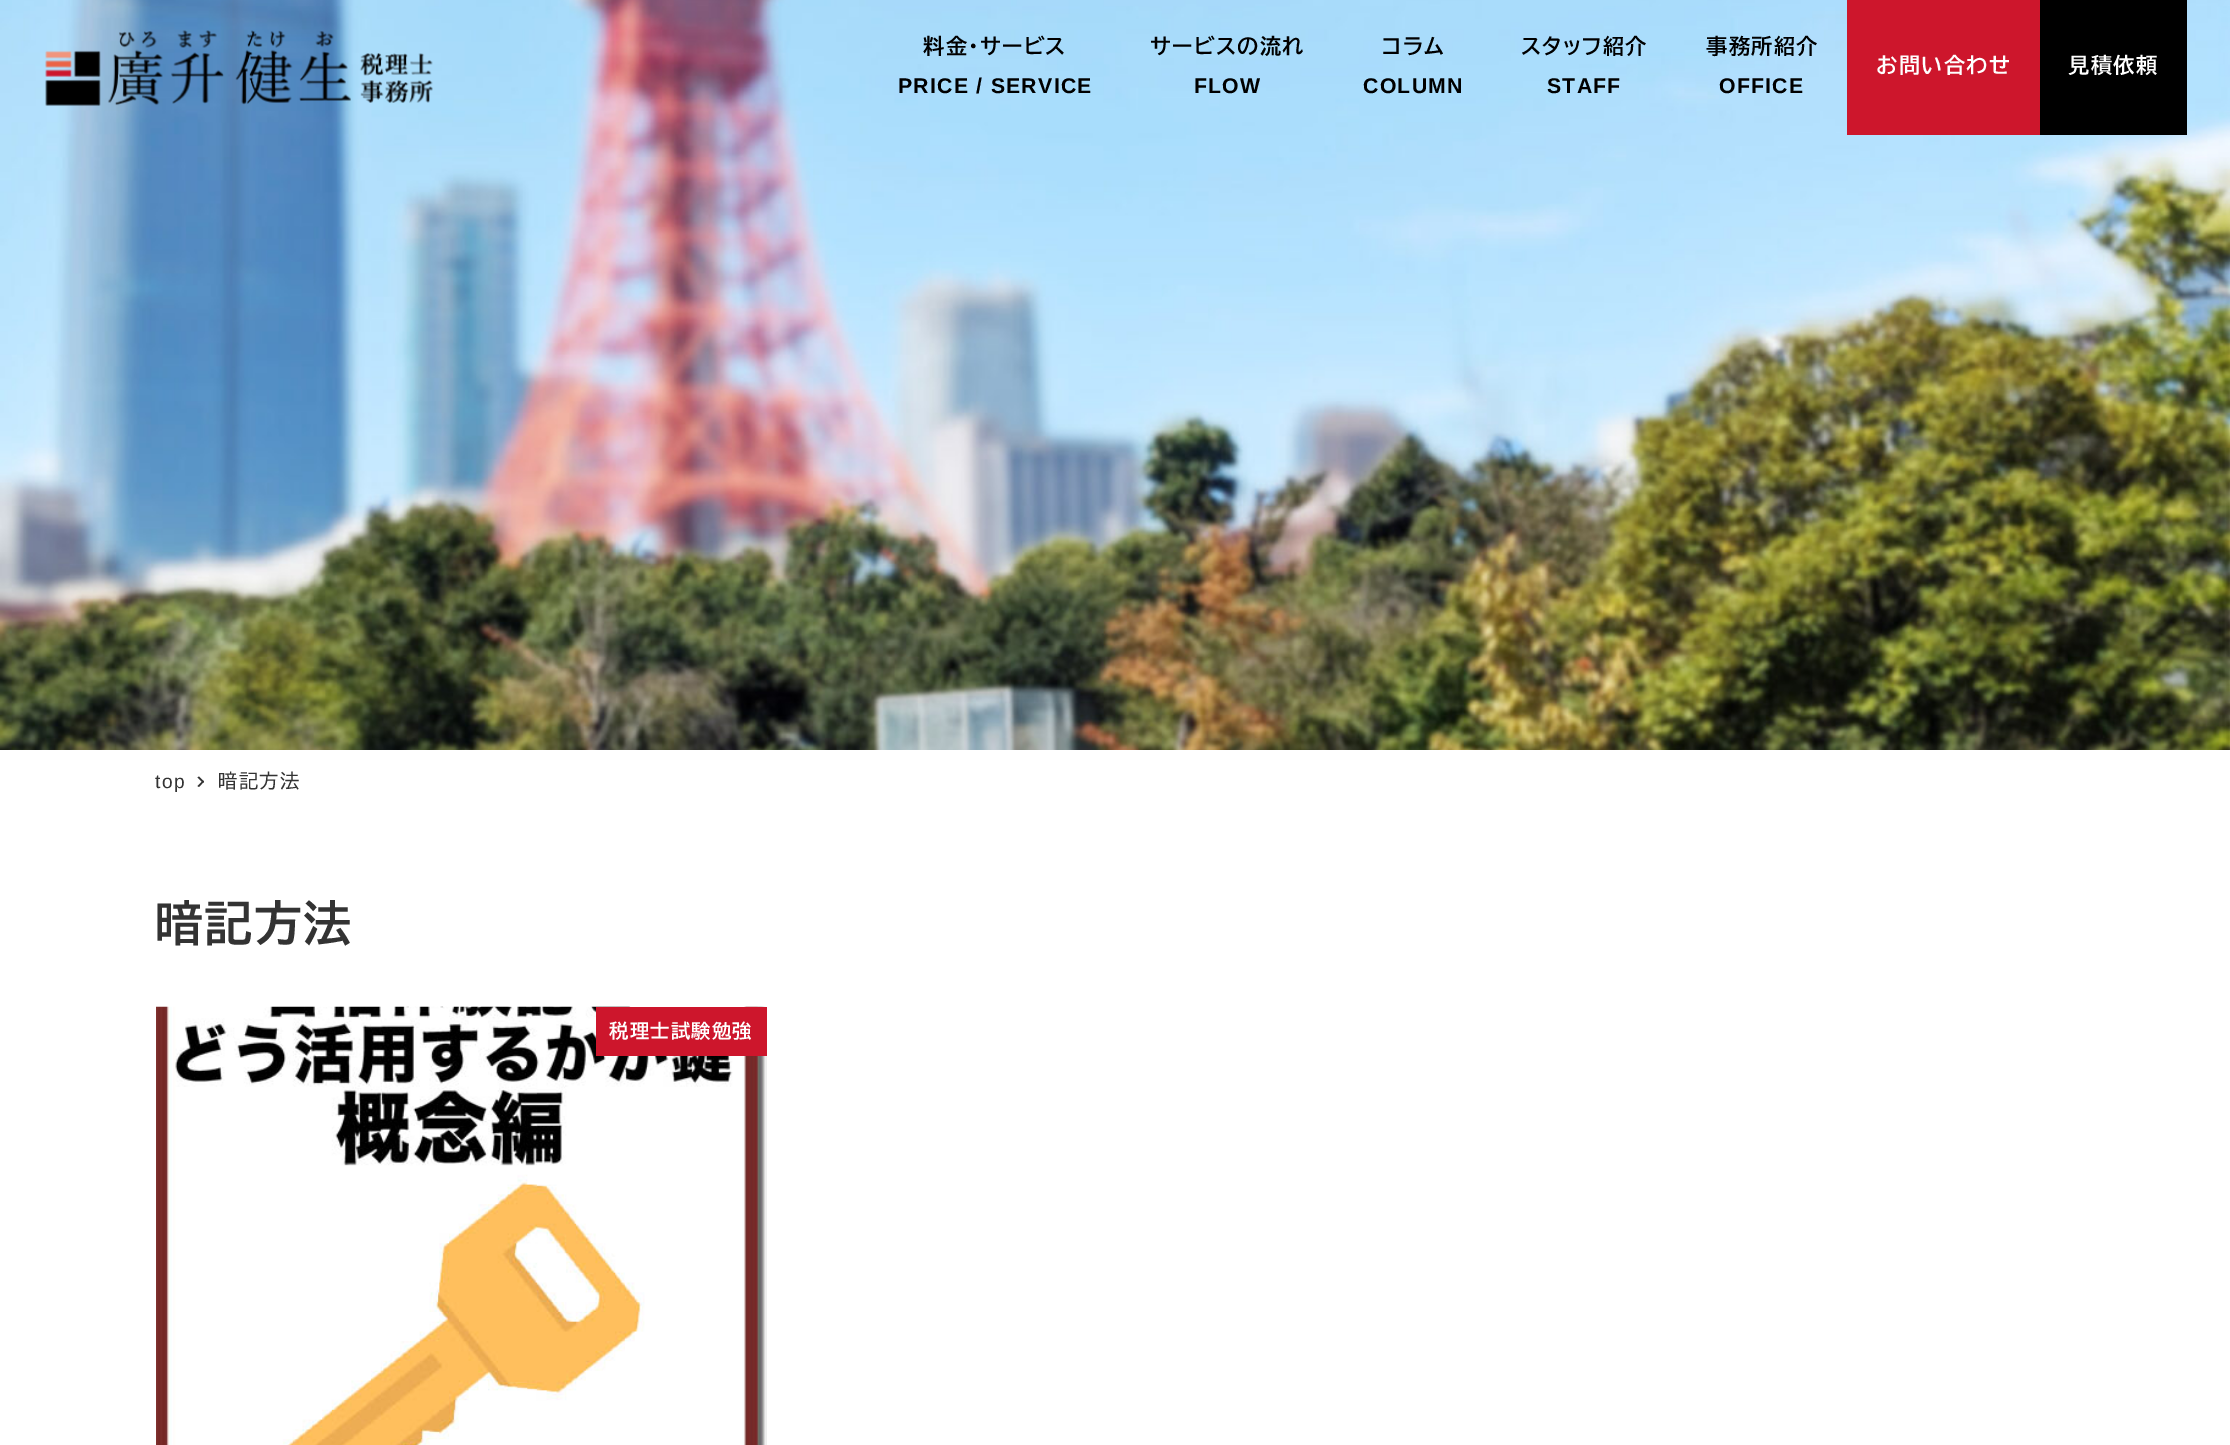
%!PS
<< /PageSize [2230 1445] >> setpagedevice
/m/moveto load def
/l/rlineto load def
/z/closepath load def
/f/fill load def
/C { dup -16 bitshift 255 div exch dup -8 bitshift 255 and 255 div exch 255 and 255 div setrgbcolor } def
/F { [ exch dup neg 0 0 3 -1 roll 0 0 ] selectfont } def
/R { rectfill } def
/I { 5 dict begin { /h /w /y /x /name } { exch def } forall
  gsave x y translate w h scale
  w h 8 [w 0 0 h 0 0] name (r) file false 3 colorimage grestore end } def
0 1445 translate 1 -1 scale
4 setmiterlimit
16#FFFFFF C
0 0 2230 1445 R
(2.rgb) 0 0 2230 750 I
(1.rgb) 45 30 388 76 I
/BIZUDPGothic-Bold 21.25 F
16#000000 C
923 54 m 1.25 0 (料金・サービス) ashow
/LiberationSans-Bold 21.25 F
898 93 m 1.25 0 (PRICE / SERVICE) ashow
/BIZUDPGothic-Bold 21.25 F
1150 54 m 1.25 0 (サービスの流れ) ashow
/LiberationSans-Bold 21.25 F
1194 93 m 1.25 0 (FLOW) ashow
/BIZUDPGothic-Bold 21.25 F
1382 54 m 1.25 0 (コラム) ashow
/LiberationSans-Bold 21.25 F
1363 93 m 1.25 0 (COLUMN) ashow
/BIZUDPGothic-Bold 21.25 F
1521 54 m 1.25 0 (スタッフ紹介) ashow
/LiberationSans-Bold 21.25 F
1547 93 m 1.25 0 (STAFF) ashow
/BIZUDPGothic-Bold 21.25 F
1706 54 m 1.25 0 (事務所紹介) ashow
/LiberationSans-Bold 21.25 F
1719 93 m 1.25 0 (OFFICE) ashow
16#CD162C C
1847 0 193 135 R
/BIZUDPGothic-Bold 21.25 F
16#FFFFFF C
1876 73 m 1.25 0 (お問い合わせ) ashow
16#000000 C
2040 0 147 135 R
16#FFFFFF C
2068 73 m 1.25 0 (見積依頼) ashow
/LiberationSans-Regular 19.25 F
16#333333 C
155 788 m 1.25 0 (top) ashow
199 776.5 m 5 5 l -1 1.5 l -5.5 -5.5 l z f
203 780.5 m 1 1 l -5 5.5 l -1.5 -1 l z f
/BIZUDPGothic-Regular 19.25 F
218 788 m 1.25 0 (暗記方法) ashow
/BIZUDPGothic-Bold 48 F
155 941 m 1.25 0 (暗記方法) ashow
16#EEEEEE C
766 1056 1 389 R
(3.rgb) 156 1006 610 439 I
16#CD162C C
596 1007 171 49 R
/BIZUDPGothic-Bold 19.25 F
16#FFFFFF C
609 1038 m 1.25 0 (税理士試験勉強) ashow
showpage
